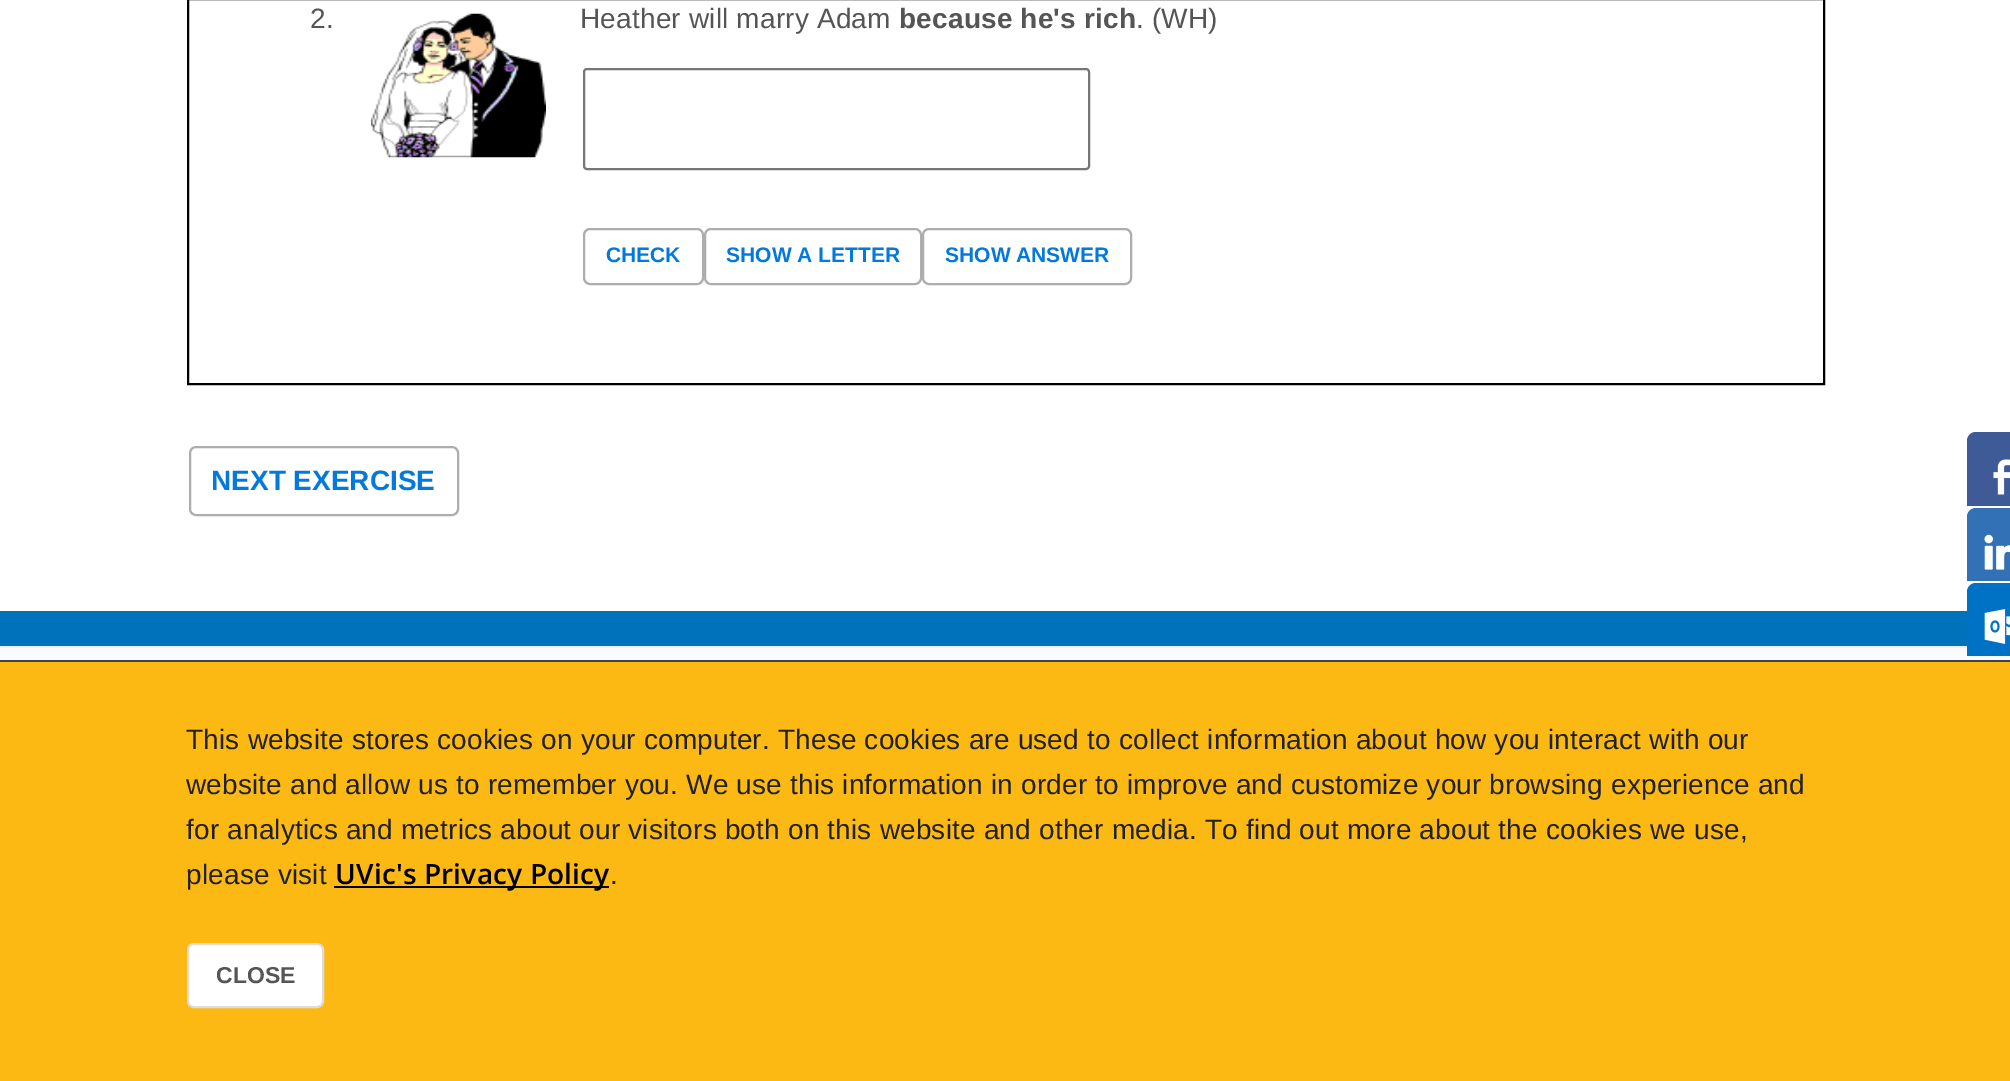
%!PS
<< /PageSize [2010 1081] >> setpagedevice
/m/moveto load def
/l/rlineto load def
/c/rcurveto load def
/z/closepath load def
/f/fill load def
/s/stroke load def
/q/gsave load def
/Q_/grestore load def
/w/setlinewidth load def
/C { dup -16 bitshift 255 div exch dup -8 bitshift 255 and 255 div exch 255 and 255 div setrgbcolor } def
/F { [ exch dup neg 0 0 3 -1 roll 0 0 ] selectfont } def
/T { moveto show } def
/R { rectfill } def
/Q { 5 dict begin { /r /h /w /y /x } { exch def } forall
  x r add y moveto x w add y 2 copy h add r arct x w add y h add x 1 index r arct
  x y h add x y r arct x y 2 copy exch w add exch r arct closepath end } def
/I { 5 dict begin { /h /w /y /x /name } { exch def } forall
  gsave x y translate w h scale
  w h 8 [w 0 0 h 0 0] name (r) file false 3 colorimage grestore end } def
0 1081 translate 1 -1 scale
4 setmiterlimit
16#FFFFFF C
0 0 2010 1081 R
16#000000 C
2 w
188 -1 1636 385 rectstroke
/LiberationSans-Regular 28 F
16#555555 C
310 28 m .18 0 (2.) ashow
(1.rgb) 371 13 175 145 I
580 28 m .18 0 (Heather will marry Adam) ashow
/LiberationSans-Bold 28 F
899 28 m .18 0 (because he's rich) ashow
/LiberationSans-Regular 28 F
1136 28 m .18 0 (. \(WH\)) ashow
16#767676 C
584 69 505 100 3 Q s
16#ADADAD C
584 229 119 55 6 Q s
/LiberationSans-Bold 21 F
16#0379DC C
(CHECK) 606 262 T
16#ADADAD C
705 229 216 55 6 Q s
16#0379DC C
(SHOW A LETTER) 726 262 T
16#ADADAD C
923 229 208 55 6 Q s
16#0379DC C
(SHOW ANSWER) 945 262 T
16#ADADAD C
190 447 268 68 6 Q s
/LiberationSans-Bold 28 F
16#0379DC C
(NEXT EXERCISE) 211 490 T
16#0072BC C
0 611 1967 35 R
16#FAFBFC C
0 648 2010 12 R
16#EEEEEE C
0 646 1967 2 R
16#FDB913 C
0 662 2010 419 R
16#3F4247 C
0 660 2010 2 R
/LiberationSans-Regular 28 F
16#212121 C
186 749 m .18 0 (This website stores cookies on your computer. These cookies are used to collect information about how you interact with our) ashow
186 794 m .18 0 (website and allow us to remember you. We use this information in order to improve and customize your browsing experience and) ashow
186 839 m .18 0 (for analytics and metrics about our visitors both on this website and other media. To find out more about the cookies we use,) ashow
186 884 m .18 0 (please visit) ashow
16#000000 C
334 886 275 2 R
/OpenSans-SemiBold 28 F
335 884 m .18 0 (UVic's Privacy Policy) ashow
/LiberationSans-Regular 28 F
16#212121 C
610 884 m .18 0 (.) ashow
16#FFFFFF C
188 944 135 63 6 Q q f Q_
16#DDDDDD C
s
/LiberationSans-Bold 23 F
16#555555 C
(CLOSE) 216 983 T
16#3E5B98 C
1976 432 m 34 0 l 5 0 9 4 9 9 c 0 65 l -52 0 l 0 -65 l 0 -5 4 -9 9 -9 c z f
(2.rgb) 1993 459 17 36 I
16#3371B7 C
1976 508 m 34 0 l 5 0 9 4 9 9 c 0 64 l -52 0 l 0 -64 l 0 -5 4 -9 9 -9 c z f
(3.rgb) 1984 534 26 36 I
16#0072C6 C
1976 583 m 34 0 l 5 0 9 4 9 9 c 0 64 l -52 0 l 0 -64 l 0 -5 4 -9 9 -9 c z f
(4.rgb) 1984 609 26 35 I
showpage
